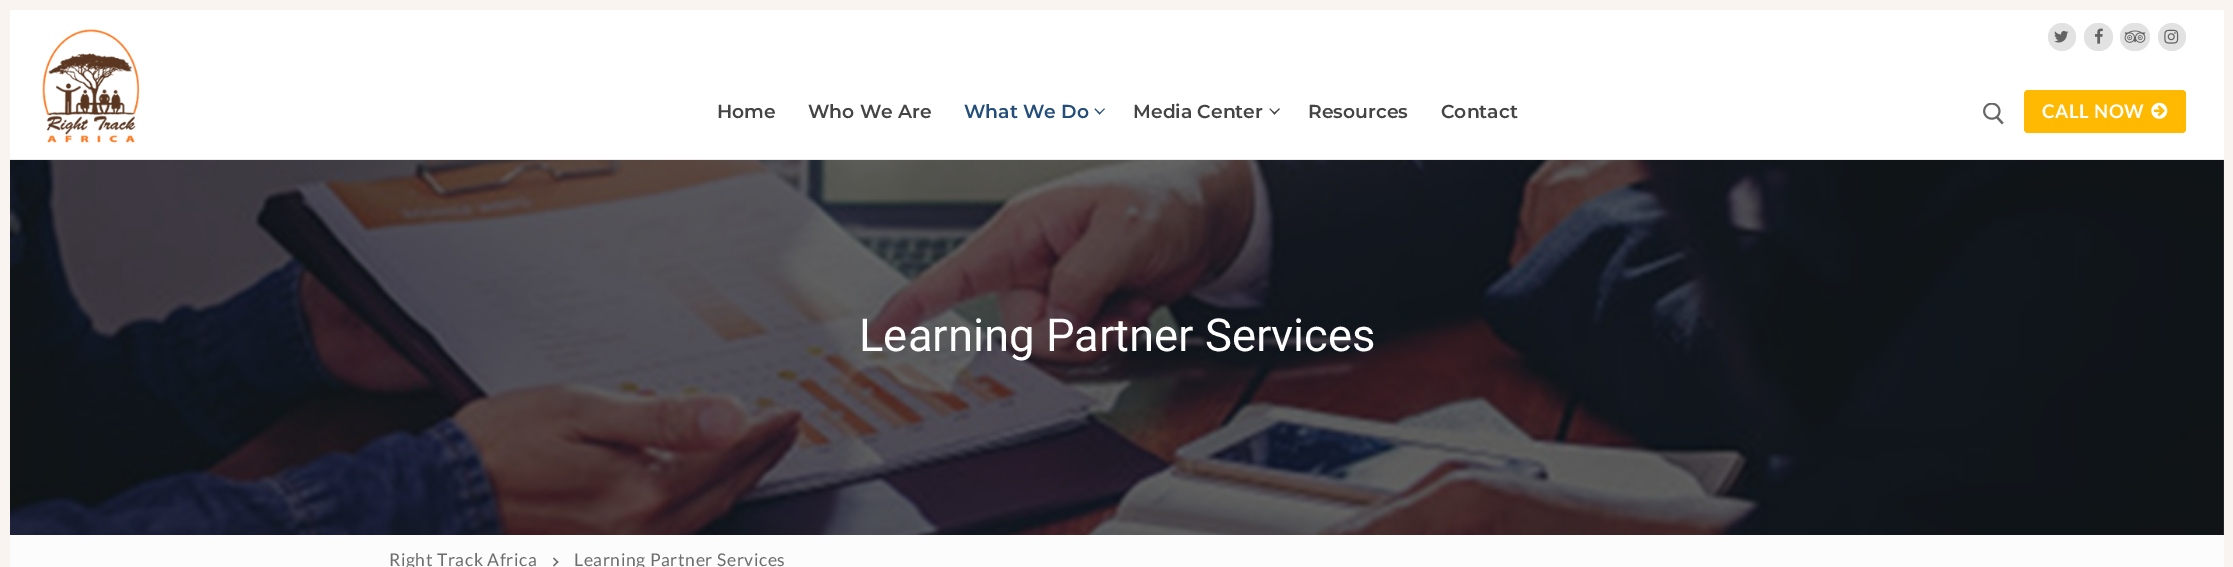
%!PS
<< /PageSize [2233 567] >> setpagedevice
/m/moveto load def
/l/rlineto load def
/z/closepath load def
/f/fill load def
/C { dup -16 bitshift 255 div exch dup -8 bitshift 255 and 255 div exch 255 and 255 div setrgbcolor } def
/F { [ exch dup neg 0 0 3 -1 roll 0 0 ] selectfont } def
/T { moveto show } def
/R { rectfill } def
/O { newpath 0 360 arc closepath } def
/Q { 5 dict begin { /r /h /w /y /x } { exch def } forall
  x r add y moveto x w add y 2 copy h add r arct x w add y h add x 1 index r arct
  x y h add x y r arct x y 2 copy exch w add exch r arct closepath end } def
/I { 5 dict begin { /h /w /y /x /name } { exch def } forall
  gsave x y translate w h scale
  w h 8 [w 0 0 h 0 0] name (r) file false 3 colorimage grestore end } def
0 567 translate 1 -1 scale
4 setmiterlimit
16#F9F4F0 C
0 0 2233 567 R
16#FFFFFF C
10 10 2214 149 R
16#E2E2E2 C
2062 37 14 O f
(1.rgb) 2054 31 15 12 I
2084 23 29 28 14 Q f
(2.rgb) 2094 28 9 16 I
2120 23 30 28 14 Q f
(3.rgb) 2124 30 22 13 I
2172 37 14 O f
(4.rgb) 2164 29 15 15 I
16#EAEAEA C
10 159 2214 1 R
(5.rgb) 42 29 98 114 I
/Montserrat-SemiBold 18.75 F
16#444444 C
(Home) 717 118 T
(Who We Are) 808 118 T
16#234E7A C
(What We Do) 964 118 T
1099.5 114.5 m -5 -5.5 l 1 -.5 l 5 5 l z f
1099.5 114.5 m -.5 -1 l 5 -5 l 1 .5 l z f
16#444444 C
(Media Center) 1133 118 T
1274.5 114.5 m -5 -5.5 l .5 -.5 l 5.5 5 l z f
1274.5 114.5 m -1 -1 l 5.5 -5 l 1 .5 l z f
(Resources) 1308 118 T
(Contact) 1441 118 T
(6.rgb) 1983 103 21 22 I
16#FFB900 C
2024 90 162 43 4 Q f
/Lato-Bold 18.75 F
16#FDFDFD C
2042 118 m .6 0 (CALL NOW) ashow
(7.rgb) 2151 102 17 17 I
(8.rgb) 10 160 2214 375 I
/Roboto-Regular 45.4 F
(Learning Partner Services) 859 351 T
16#FCFCFC C
10 535 2214 32 R
/Lato-Regular 17.5 F
16#6D6D6D C
389 566 m .6 0 (Right Track Africa) ashow
558.5 562 m -4.5 4.5 l -1 -1 l 4.5 -4.5 l z f
558.5 562 m -1 1 l -4.5 -4.5 l 1 -1 l z f
574 566 m .6 0 (Learning Partner Services) ashow
showpage
